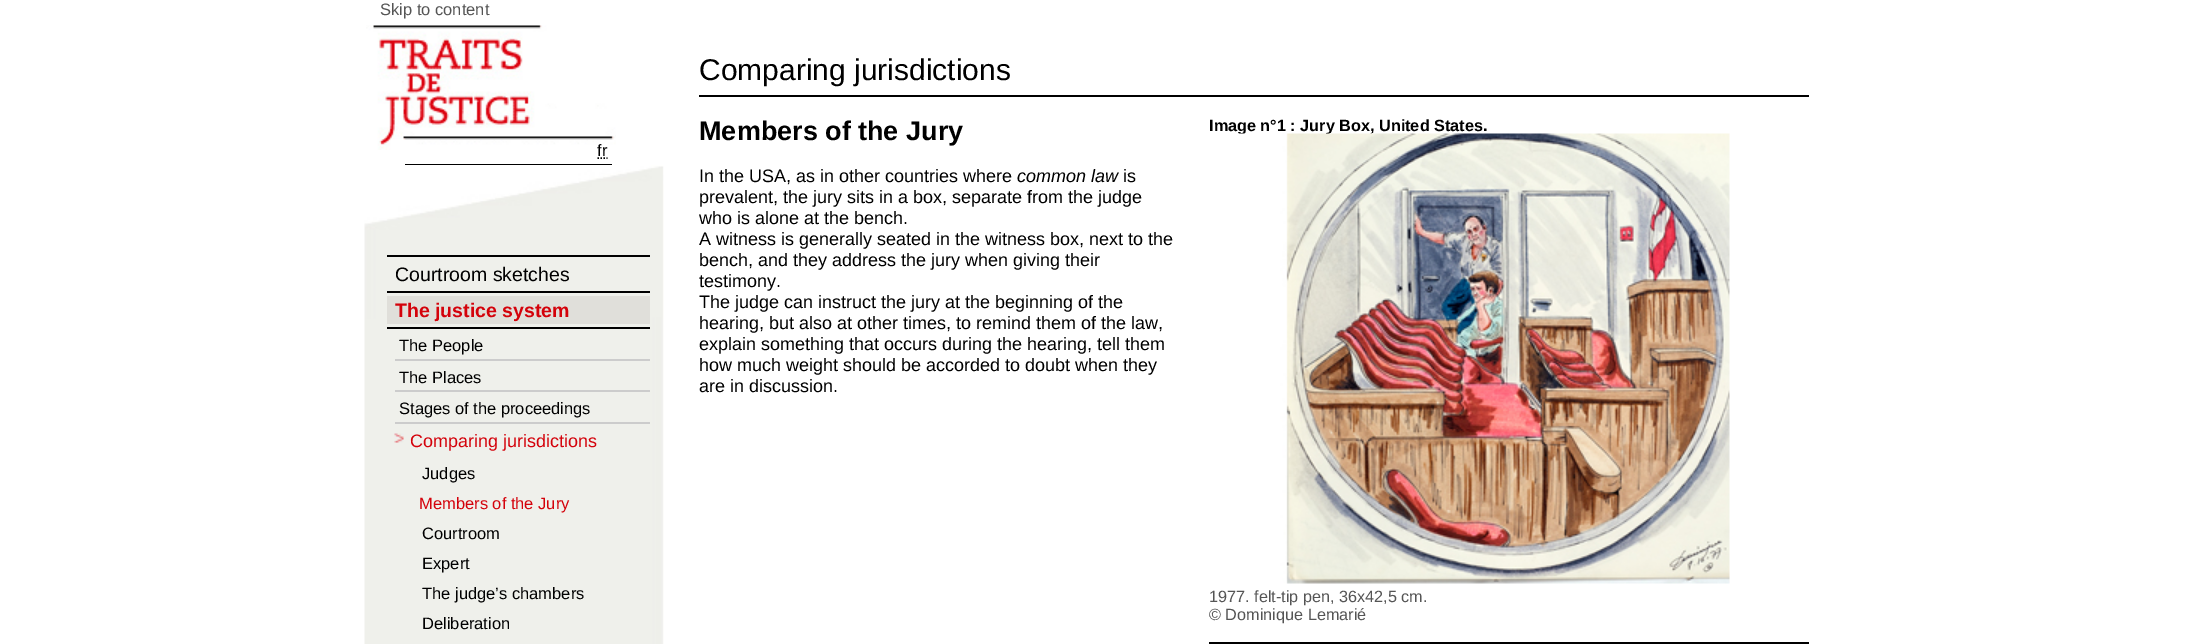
%!PS
<< /PageSize [2198 644] >> setpagedevice
/m/moveto load def
/l/rlineto load def
/s/stroke load def
/w/setlinewidth load def
/C { dup -16 bitshift 255 div exch dup -8 bitshift 255 and 255 div exch 255 and 255 div setrgbcolor } def
/F { [ exch dup neg 0 0 3 -1 roll 0 0 ] selectfont } def
/T { moveto show } def
/R { rectfill } def
/I { 5 dict begin { /h /w /y /x /name } { exch def } forall
  gsave x y translate w h scale
  w h 8 [w 0 0 h 0 0] name (r) file false 3 colorimage grestore end } def
0 644 translate 1 -1 scale
4 setmiterlimit
16#FFFFFF C
0 0 2198 644 R
/LiberationSans-Regular 16.5 F
16#555555 C
(Skip to content) 380 15 T
(1.rgb) 366 25 250 125 I
16#000000 C
405 164 207 1 R
(fr) 597 156 T
1.5 w
597.5 158 m 1.5 0 l 600.5 158 m 1.5 0 l 603.5 158 m 1.5 0 l 606.5 158 m 1 0 l s
(2.rgb) 364 165 300 479 I
387 255 263 2 R
/LiberationSans-Regular 19.5 F
(Courtroom sketches) 395 281 T
387 291 263 2 R
16#E0DFDA C
387 296 263 28 R
/LiberationSans-Bold 19.5 F
16#D4020B C
(The justice system) 395 317 T
16#000000 C
387 327 263 2 R
16#CCCCCC C
395 359 255 2 R
/LiberationSans-Regular 16.5 F
16#000000 C
(The People) 399 351 T
16#CCCCCC C
395 390 255 2 R
16#000000 C
(The Places) 399 383 T
16#CCCCCC C
395 422 255 2 R
16#000000 C
(Stages of the proceedings) 399 414 T
(3.rgb) 394 433 10 10 I
/LiberationSans-Regular 18 F
16#D4020B C
(Comparing jurisdictions) 410 447 T
/LiberationSans-Regular 16.5 F
16#000000 C
(Judges) 422 479 T
16#D4020B C
(Members of the Jury) 419 509 T
16#000000 C
(Courtroom) 422 539 T
(Expert) 422 569 T
(The judge’s chambers) 422 599 T
(Deliberation) 422 629 T
699 95 1110 2 R
/LiberationSans-Regular 30 F
(Comparing jurisdictions) 699 80 T
/LiberationSans-Bold 27 F
(Members of the Jury) 699 140 T
/LiberationSans-Regular 18 F
(In the USA, as in other countries where) 699 182 T
/LiberationSans-Italic 18 F
(common law) 1017 182 T
/LiberationSans-Regular 18 F
(is) 1123 182 T
(prevalent, the jury sits in a box, separate from the judge) 699 203 T
(who is alone at the bench.) 699 224 T
(A witness is generally seated in the witness box, next to the) 699 245 T
(bench, and they address the jury when giving their) 699 266 T
(testimony.) 699 287 T
(The judge can instruct the jury at the beginning of the) 699 308 T
(hearing, but also at other times, to remind them of the law,) 699 329 T
(explain something that occurs during the hearing, tell them) 699 350 T
(how much weight should be accorded to doubt when they) 699 371 T
(are in discussion.) 699 392 T
/LiberationSans-Bold 16.25 F
(Image n°1 : Jury Box, United States.) 1209 131 T
(4.rgb) 1238 133 492 451 I
/LiberationSans-Regular 16.25 F
16#555555 C
(1977. felt-tip pen, 36x42,5 cm.) 1209 602 T
(© Dominique Lemarié) 1209 620 T
16#000000 C
1209 642 600 2 R
showpage
